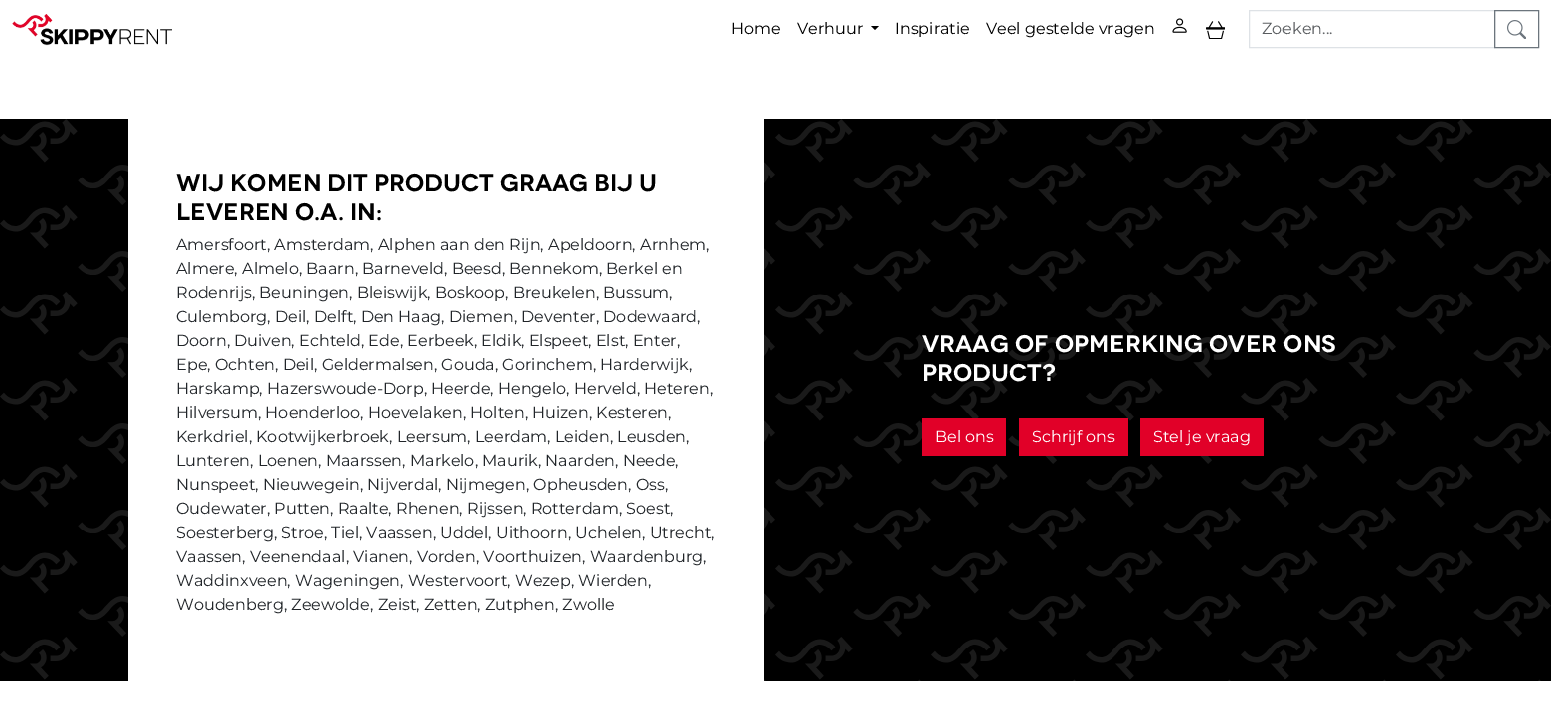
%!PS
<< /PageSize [1551 704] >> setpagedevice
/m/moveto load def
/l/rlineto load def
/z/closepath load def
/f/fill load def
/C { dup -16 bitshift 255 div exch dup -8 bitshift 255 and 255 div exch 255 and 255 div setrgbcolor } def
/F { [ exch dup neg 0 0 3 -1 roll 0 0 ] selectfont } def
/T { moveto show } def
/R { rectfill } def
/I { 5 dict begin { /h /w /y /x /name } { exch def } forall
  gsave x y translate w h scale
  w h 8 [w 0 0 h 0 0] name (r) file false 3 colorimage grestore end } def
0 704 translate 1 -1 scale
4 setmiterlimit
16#FFFFFF C
0 0 1551 704 R
(1.rgb) 12 14 160 32 I
/Montserrat-Regular 16 F
16#000000 C
(Home) 731 34 T
(Verhuur) 797 34 T
871 26 m 8 0 l -4 4 l z f
(Inspiratie) 895 34 T
(Veel gestelde vragen) 986 34 T
(2.rgb) 1172 18 15 15 I
(3.rgb) 1206 21 19 18 I
16#DEE2E6 C
1249.5 10.5 245 37 rectstroke
16#595C5F C
(Zoeken...) 1262 34 T
16#6C757D C
1494.5 10.5 44 37 rectstroke
(4.rgb) 1507 20 19 19 I
16#000000 C
0 119 1551 562 R
(5.rgb) 0 119 1551 562 I
16#FFFFFF C
128 119 636 562 R
/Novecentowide-SemiBold 24 F
16#000000 C
(Wij komen dit product graag bij u) 176 191 T
(leveren o.a. in:) 176 220 T
/Montserrat-Regular 16 F
16#212529 C
(Amersfoort, Amsterdam, Alphen aan den Rijn, Apeldoorn, Arnhem,) 176 250 T
(Almere, Almelo, Baarn, Barneveld, Beesd, Bennekom, Berkel en) 176 274 T
(Rodenrijs, Beuningen, Bleiswijk, Boskoop, Breukelen, Bussum,) 176 298 T
(Culemborg, Deil, Delft, Den Haag, Diemen, Deventer, Dodewaard,) 176 322 T
(Doorn, Duiven, Echteld, Ede, Eerbeek, Eldik, Elspeet, Elst, Enter,) 176 346 T
(Epe, Ochten, Deil, Geldermalsen, Gouda, Gorinchem, Harderwijk,) 176 370 T
(Harskamp, Hazerswoude-Dorp, Heerde, Hengelo, Herveld, Heteren,) 176 394 T
(Hilversum, Hoenderloo, Hoevelaken, Holten, Huizen, Kesteren,) 176 418 T
(Kerkdriel, Kootwijkerbroek, Leersum, Leerdam, Leiden, Leusden,) 176 442 T
(Lunteren, Loenen, Maarssen, Markelo, Maurik, Naarden, Neede,) 176 466 T
(Nunspeet, Nieuwegein, Nijverdal, Nijmegen, Opheusden, Oss,) 176 490 T
(Oudewater, Putten, Raalte, Rhenen, Rijssen, Rotterdam, Soest,) 176 514 T
(Soesterberg, Stroe, Tiel, Vaassen, Uddel, Uithoorn, Uchelen, Utrecht,) 176 538 T
(Vaassen, Veenendaal, Vianen, Vorden, Voorthuizen, Waardenburg,) 176 562 T
(Waddinxveen, Wageningen, Westervoort, Wezep, Wierden,) 176 586 T
(Woudenberg, Zeewolde, Zeist, Zetten, Zutphen, Zwolle) 176 610 T
/Novecentowide-SemiBold 24 F
16#FFFFFF C
(Vraag of opmerking over ons) 922 352 T
(product?) 922 381 T
16#E10028 C
922 418 84 38 R
/Montserrat-Regular 16 F
16#FFFFFF C
(Bel ons) 935 442 T
16#E10028 C
1019 418 109 38 R
16#FFFFFF C
(Schrijf ons) 1032 442 T
16#E10028 C
1140 418 124 38 R
16#FFFFFF C
(Stel je vraag) 1153 442 T
showpage
